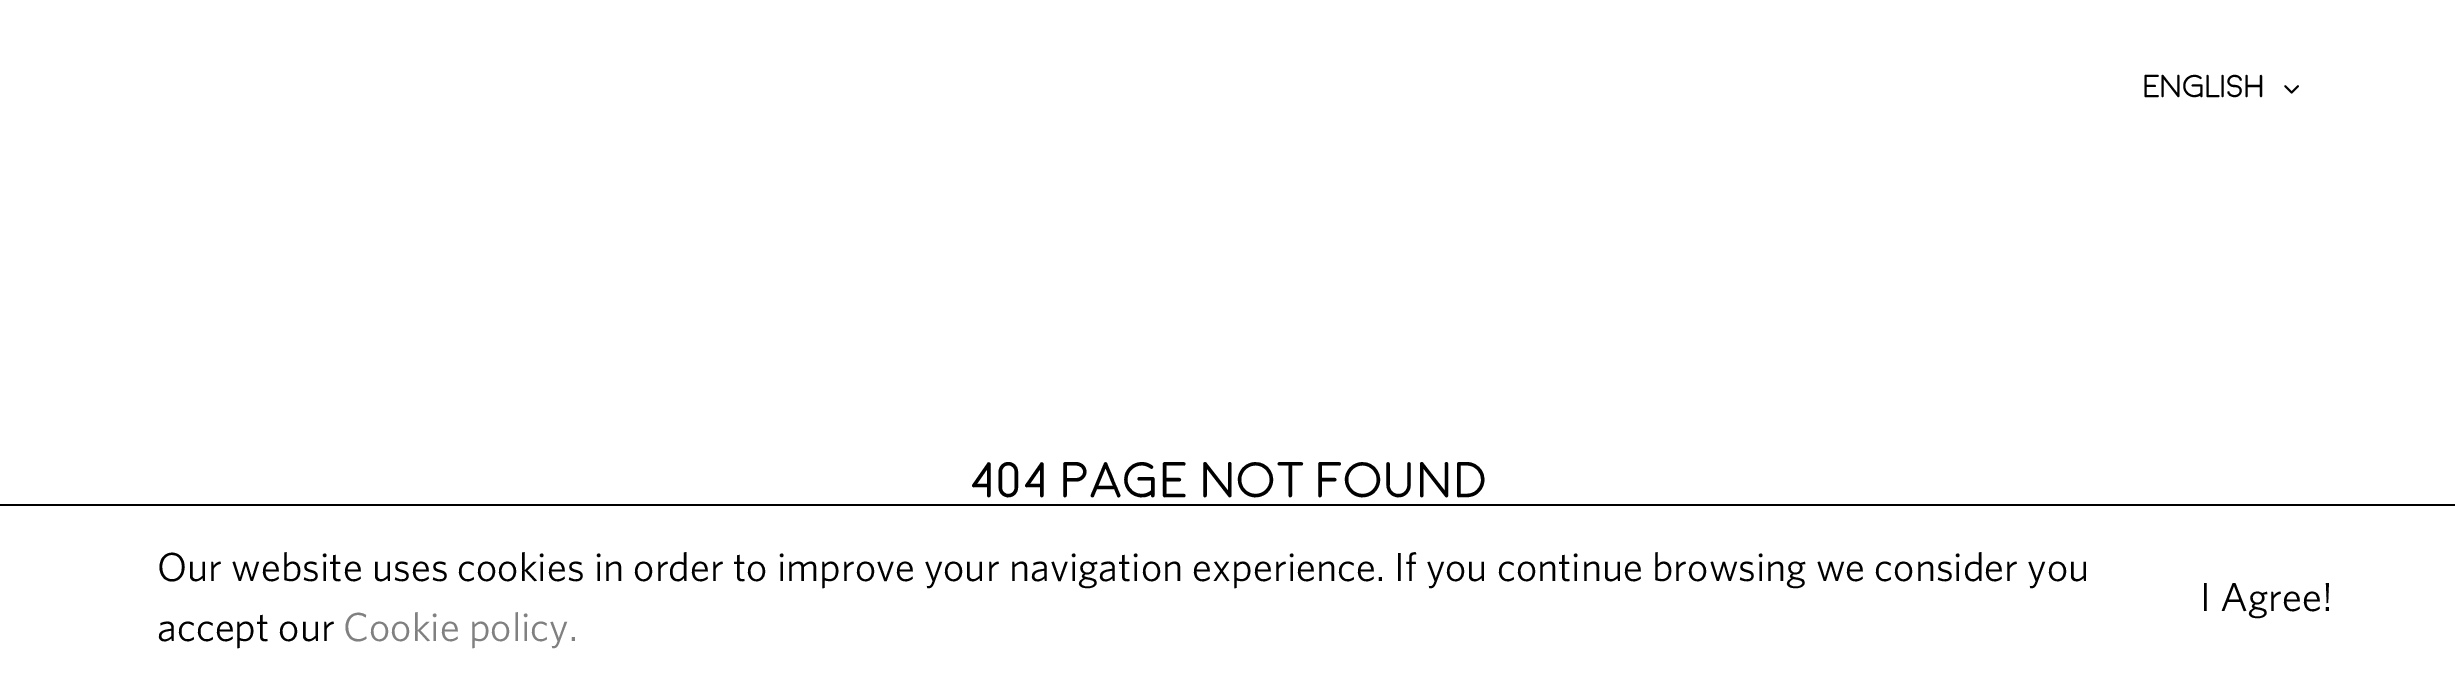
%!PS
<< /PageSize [2455 694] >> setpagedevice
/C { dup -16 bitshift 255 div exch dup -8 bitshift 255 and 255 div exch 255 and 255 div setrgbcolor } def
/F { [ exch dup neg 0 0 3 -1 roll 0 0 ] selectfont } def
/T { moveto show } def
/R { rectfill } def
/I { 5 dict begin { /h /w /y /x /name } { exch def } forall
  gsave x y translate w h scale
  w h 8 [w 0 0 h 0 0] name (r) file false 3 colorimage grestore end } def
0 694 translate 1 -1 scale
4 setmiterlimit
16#FFFFFF C
0 0 2455 694 R
/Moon-Medium 31.5 F
16#000000 C
(ENGLISH) 2143 97 T
(1.rgb) 2284 85 15 9 I
/Moon-Medium 49.5 F
(404 Page Not Found) 969 497 T
0 504 2455 2 R
/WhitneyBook-Regular 40.5 F
(Our website uses cookies in order to improve your navigation experience. If you continue browsing we consider you) 157 581 T
(accept our) 157 641 T
16#808080 C
(Cookie policy.) 343 641 T
16#000000 C
(I Agree!) 2200 611 T
showpage
